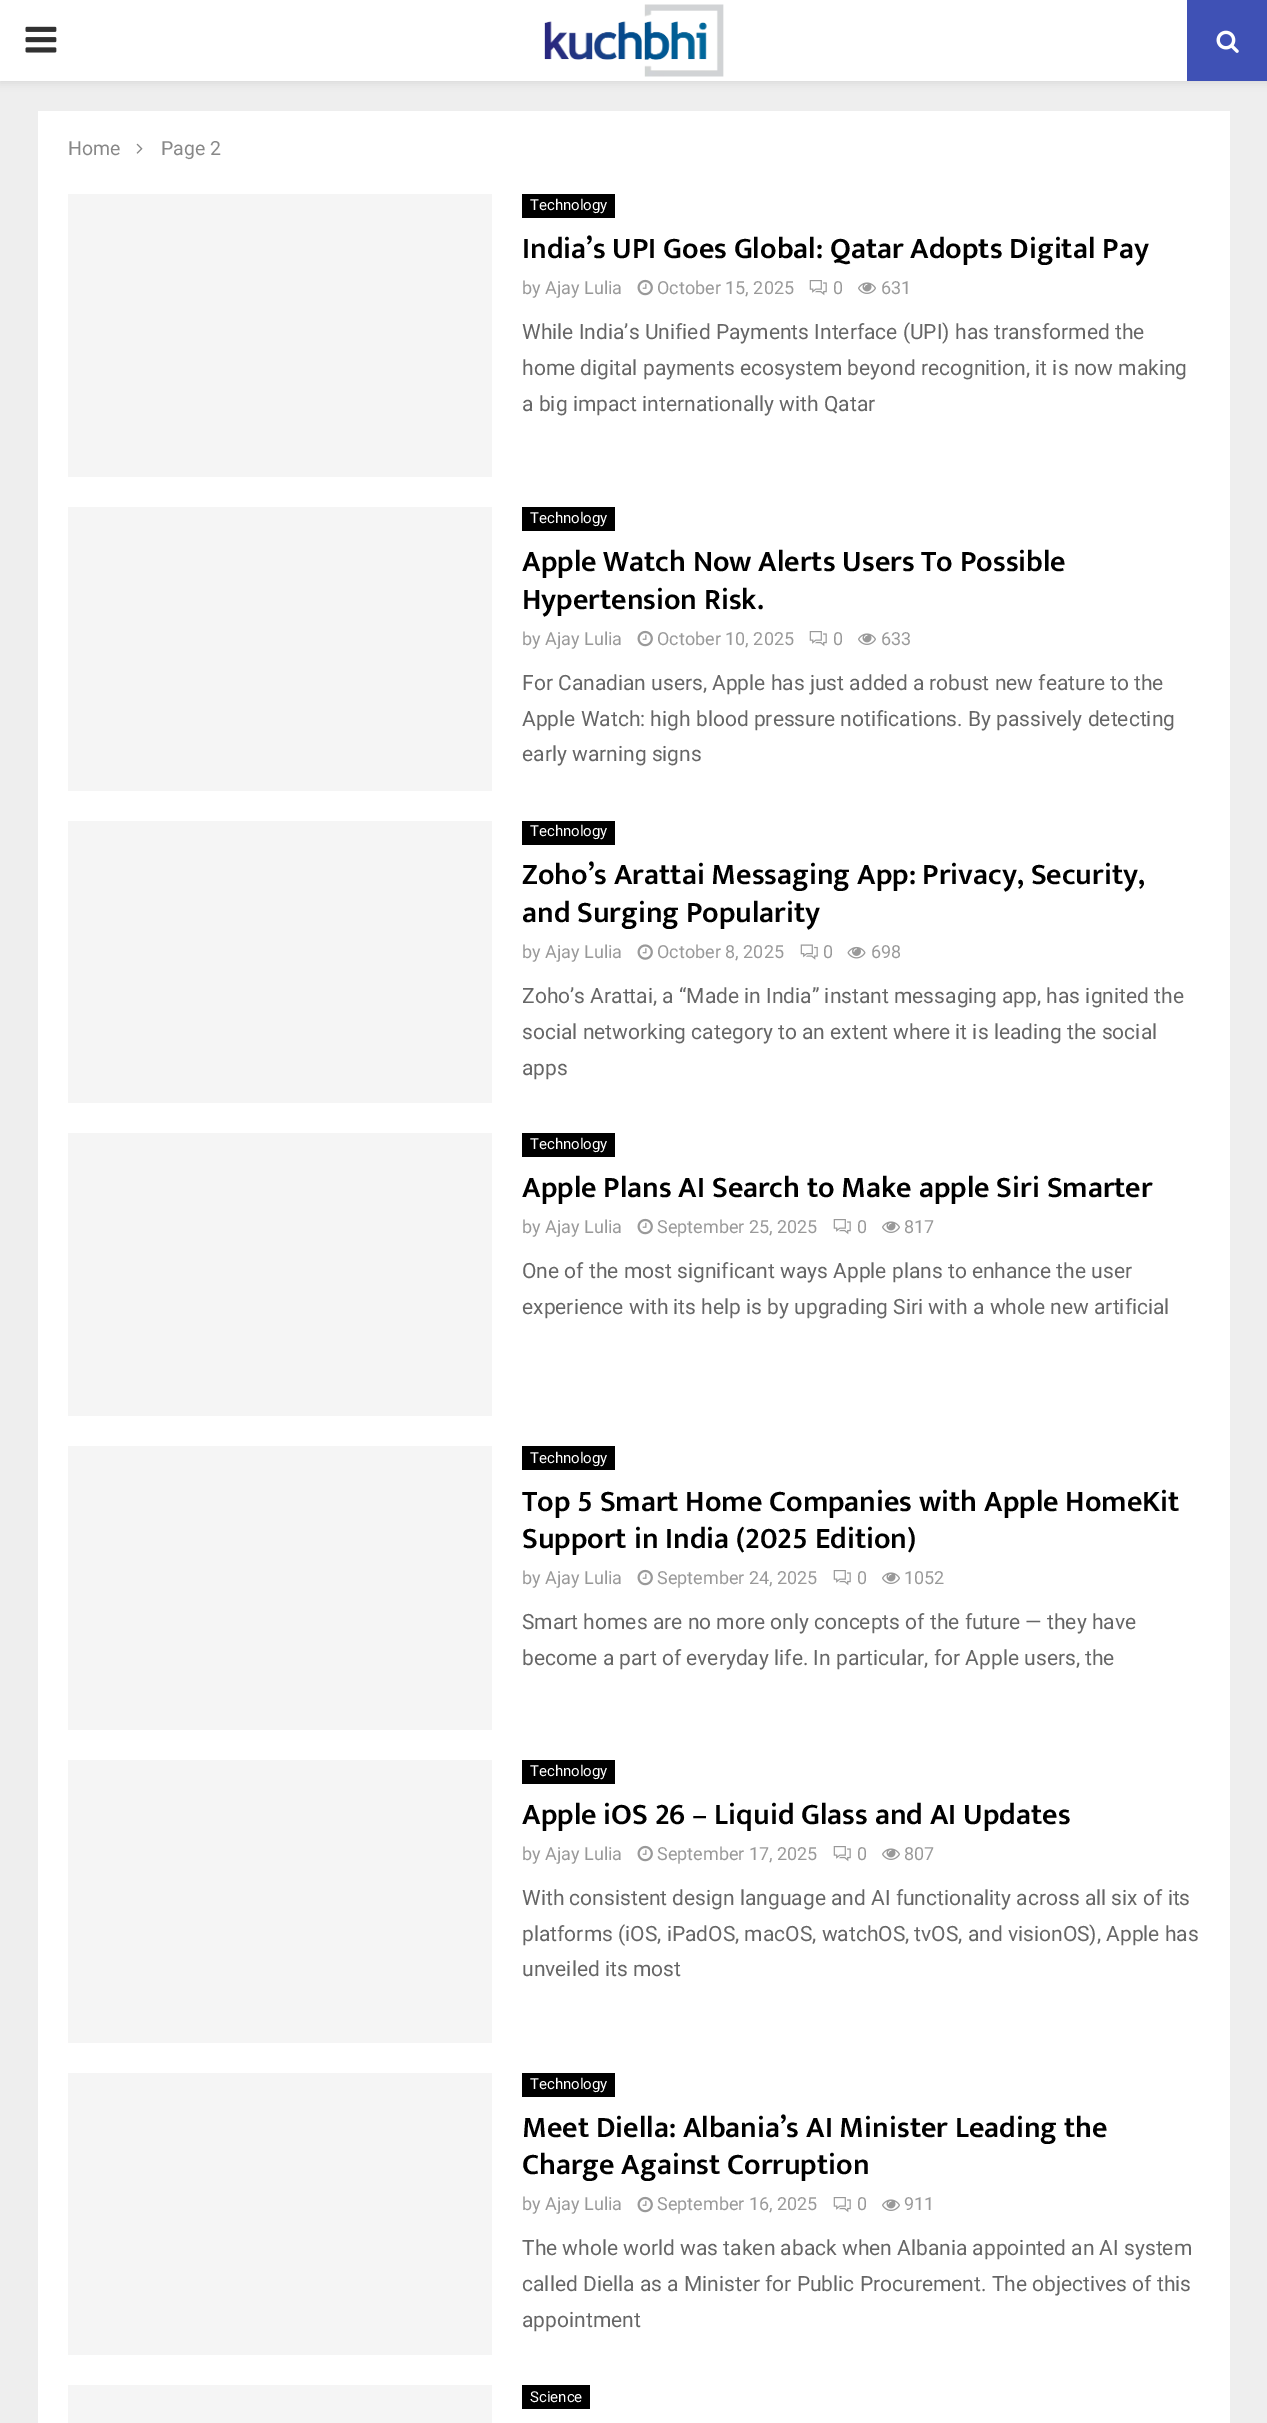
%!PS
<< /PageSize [1267 2423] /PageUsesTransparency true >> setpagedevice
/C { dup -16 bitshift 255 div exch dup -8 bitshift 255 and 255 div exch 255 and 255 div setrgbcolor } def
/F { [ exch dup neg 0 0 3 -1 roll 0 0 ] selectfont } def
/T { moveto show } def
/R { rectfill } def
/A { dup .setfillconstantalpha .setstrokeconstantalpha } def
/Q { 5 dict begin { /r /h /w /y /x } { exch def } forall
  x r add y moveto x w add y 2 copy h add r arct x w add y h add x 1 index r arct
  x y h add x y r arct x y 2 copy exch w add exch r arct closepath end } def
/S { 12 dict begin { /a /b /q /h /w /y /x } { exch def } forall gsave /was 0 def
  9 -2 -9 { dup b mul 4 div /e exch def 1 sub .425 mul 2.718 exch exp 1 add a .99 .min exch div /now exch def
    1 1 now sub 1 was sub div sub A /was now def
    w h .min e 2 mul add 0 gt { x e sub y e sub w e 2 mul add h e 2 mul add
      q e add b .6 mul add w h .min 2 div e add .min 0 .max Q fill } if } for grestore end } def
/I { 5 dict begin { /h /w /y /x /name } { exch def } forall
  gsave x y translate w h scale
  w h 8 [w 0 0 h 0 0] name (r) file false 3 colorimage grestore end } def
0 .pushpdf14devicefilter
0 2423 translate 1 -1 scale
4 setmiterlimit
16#EEEEEE C
0 0 1267 2423 R
16#BEBEBE C
0 2 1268 81 0 4 .46 S
16#FFFFFF C
0 0 1187 81 R
(1.rgb) 25 26 32 27 I
(2.rgb) 544 4 180 73 I
16#3F51B5 C
1187 0 80 81 R
(3.rgb) 1216 30 23 23 I
16#FFFFFF C
38 111 1192 2312 R
/Roboto-Regular 19.5 F
16#888888 C
(Home) 68 155 T
(4.rgb) 136 143 7 11 I
(Page 2) 161 155 T
16#F5F5F5 C
68 194 424 283 R
16#000000 C
522 194 93 24 R
/Roboto-Regular 15 F
16#FFFFFF C
(Technology) 530 210 T
/MuktaVaani-SemiBold 30 F
16#000000 C
(India’s UPI Goes Global: Qatar Adopts Digital Pay) 522 258 T
/Roboto-Regular 18 F
16#999999 C
(by Ajay Lulia) 522 294 T
(5.rgb) 637 279 16 17 I
(October 15, 2025) 657 294 T
(6.rgb) 809 280 18 16 I
(0) 833 294 T
(7.rgb) 858 282 18 12 I
(631) 881 294 T
/Roboto-Regular 21 F
16#666666 C
(While India’s Unified Payments Interface \(UPI\) has transformed the) 522 339 T
(home digital payments ecosystem beyond recognition, it is now making) 522 375 T
(a big impact internationally with Qatar) 522 411 T
16#F5F5F5 C
68 507 424 284 R
16#000000 C
522 507 93 24 R
/Roboto-Regular 15 F
16#FFFFFF C
(Technology) 530 523 T
/MuktaVaani-SemiBold 30 F
16#000000 C
(Apple Watch Now Alerts Users To Possible) 522 571 T
(Hypertension Risk.) 522 609 T
/Roboto-Regular 18 F
16#999999 C
(by Ajay Lulia) 522 645 T
(5.rgb) 637 630 16 17 I
(October 10, 2025) 657 645 T
(6.rgb) 809 631 18 16 I
(0) 833 645 T
(7.rgb) 858 633 18 12 I
(633) 881 645 T
/Roboto-Regular 21 F
16#666666 C
(For Canadian users, Apple has just added a robust new feature to the) 522 690 T
(Apple Watch: high blood pressure notifications. By passively detecting) 522 726 T
(early warning signs) 522 761 T
16#F5F5F5 C
68 821 424 282 R
16#000000 C
522 821 93 24 R
/Roboto-Regular 15 F
16#FFFFFF C
(Technology) 530 836 T
/MuktaVaani-SemiBold 30 F
16#000000 C
(Zoho’s Arattai Messaging App: Privacy, Security,) 522 884 T
(and Surging Popularity) 522 922 T
/Roboto-Regular 18 F
16#999999 C
(by Ajay Lulia) 522 958 T
(8.rgb) 637 944 16 16 I
(October 8, 2025) 657 958 T
(9.rgb) 800 944 18 16 I
(0) 823 958 T
(10.rgb) 847 946 19 13 I
(698) 871 958 T
/Roboto-Regular 21 F
16#666666 C
(Zoho’s Arattai, a “Made in India” instant messaging app, has ignited the) 522 1003 T
(social networking category to an extent where it is leading the social) 522 1039 T
(apps) 522 1075 T
16#F5F5F5 C
68 1133 424 283 R
16#000000 C
522 1133 93 24 R
/Roboto-Regular 15 F
16#FFFFFF C
(Technology) 530 1149 T
/MuktaVaani-SemiBold 30 F
16#000000 C
(Apple Plans AI Search to Make apple Siri Smarter) 522 1197 T
/Roboto-Regular 18 F
16#999999 C
(by Ajay Lulia) 522 1233 T
(5.rgb) 637 1218 16 17 I
(September 25, 2025) 657 1233 T
(6.rgb) 833 1219 18 16 I
(0) 857 1233 T
(7.rgb) 882 1221 18 12 I
(817) 904 1233 T
/Roboto-Regular 21 F
16#666666 C
(One of the most significant ways Apple plans to enhance the user) 522 1278 T
(experience with its help is by upgrading Siri with a whole new artificial) 522 1314 T
16#F5F5F5 C
68 1446 424 284 R
16#000000 C
522 1446 93 24 R
/Roboto-Regular 15 F
16#FFFFFF C
(Technology) 530 1463 T
/MuktaVaani-SemiBold 30 F
16#000000 C
(Top 5 Smart Home Companies with Apple HomeKit) 522 1511 T
(Support in India \(2025 Edition\)) 522 1548 T
/Roboto-Regular 18 F
16#999999 C
(by Ajay Lulia) 522 1584 T
(5.rgb) 637 1569 16 17 I
(September 24, 2025) 657 1584 T
(6.rgb) 833 1570 18 16 I
(0) 857 1584 T
(7.rgb) 882 1572 18 12 I
(1052) 904 1584 T
/Roboto-Regular 21 F
16#666666 C
(Smart homes are no more only concepts of the future — they have) 522 1629 T
(become a part of everyday life. In particular, for Apple users, the) 522 1665 T
16#F5F5F5 C
68 1760 424 283 R
16#000000 C
522 1760 93 24 R
/Roboto-Regular 15 F
16#FFFFFF C
(Technology) 530 1776 T
/MuktaVaani-SemiBold 30 F
16#000000 C
(Apple iOS 26 – Liquid Glass and AI Updates) 522 1824 T
/Roboto-Regular 18 F
16#999999 C
(by Ajay Lulia) 522 1860 T
(5.rgb) 637 1845 16 17 I
(September 17, 2025) 657 1860 T
(6.rgb) 833 1846 18 16 I
(0) 857 1860 T
(7.rgb) 882 1848 18 12 I
(807) 904 1860 T
/Roboto-Regular 21 F
16#666666 C
(With consistent design language and AI functionality across all six of its) 522 1905 T
(platforms \(iOS, iPadOS, macOS, watchOS, tvOS, and visionOS\), Apple has) 522 1941 T
(unveiled its most) 522 1976 T
16#F5F5F5 C
68 2073 424 282 R
16#000000 C
522 2073 93 24 R
/Roboto-Regular 15 F
16#FFFFFF C
(Technology) 530 2089 T
/MuktaVaani-SemiBold 30 F
16#000000 C
(Meet Diella: Albania’s AI Minister Leading the) 522 2137 T
(Charge Against Corruption) 522 2174 T
/Roboto-Regular 18 F
16#999999 C
(by Ajay Lulia) 522 2210 T
(5.rgb) 637 2196 16 17 I
(September 16, 2025) 657 2210 T
(6.rgb) 833 2197 18 16 I
(0) 857 2210 T
(7.rgb) 882 2199 18 12 I
(911) 904 2210 T
/Roboto-Regular 21 F
16#666666 C
(The whole world was taken aback when Albania appointed an AI system) 522 2255 T
(called Diella as a Minister for Public Procurement. The objectives of this) 522 2291 T
(appointment) 522 2327 T
16#F5F5F5 C
68 2385 424 38 R
16#000000 C
522 2385 68 24 R
/Roboto-Regular 15 F
16#FFFFFF C
(Science) 530 2402 T
.poppdf14devicefilter showpage
